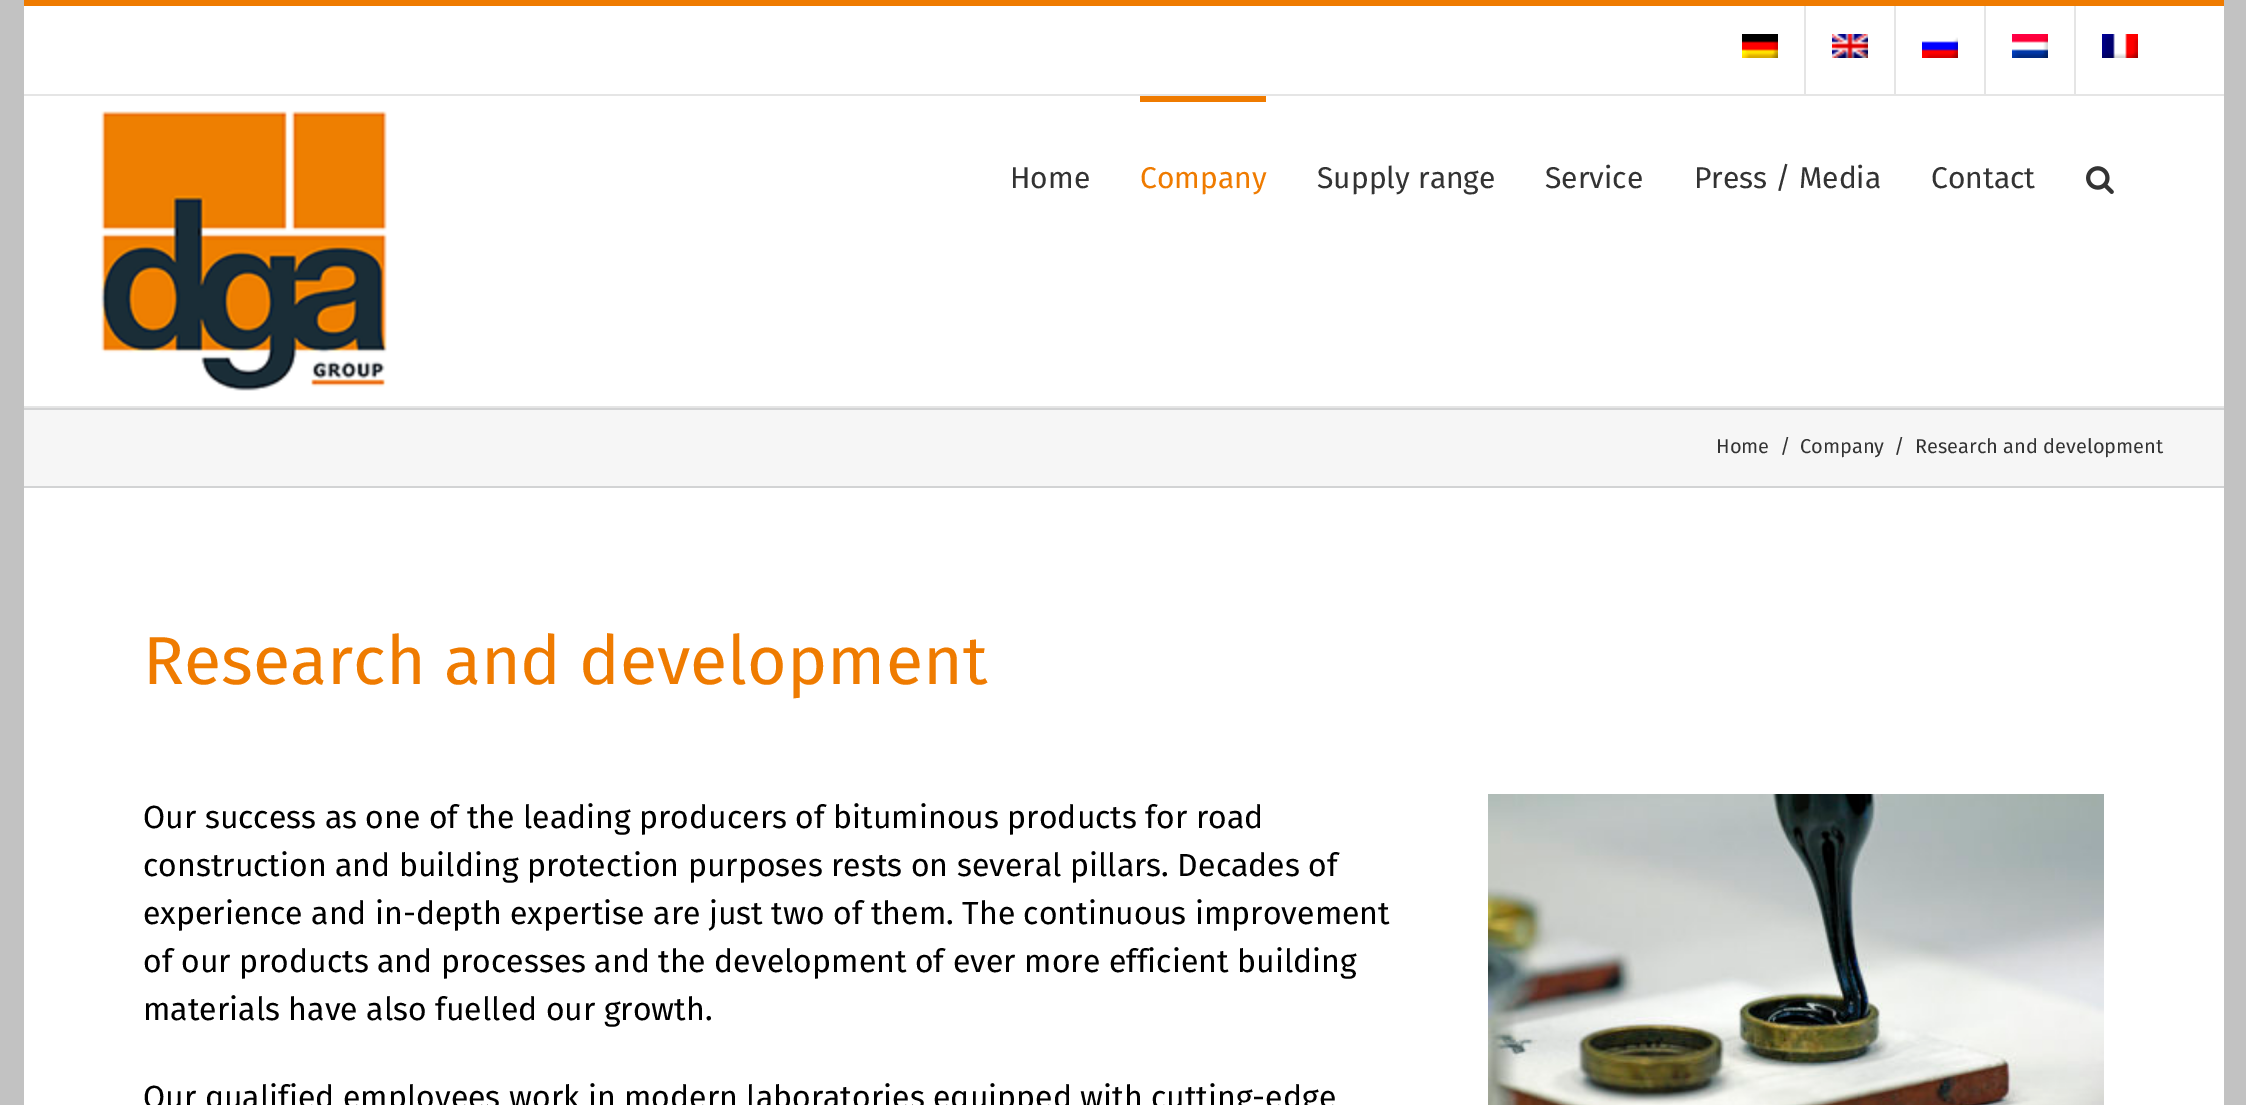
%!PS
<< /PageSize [2246 1105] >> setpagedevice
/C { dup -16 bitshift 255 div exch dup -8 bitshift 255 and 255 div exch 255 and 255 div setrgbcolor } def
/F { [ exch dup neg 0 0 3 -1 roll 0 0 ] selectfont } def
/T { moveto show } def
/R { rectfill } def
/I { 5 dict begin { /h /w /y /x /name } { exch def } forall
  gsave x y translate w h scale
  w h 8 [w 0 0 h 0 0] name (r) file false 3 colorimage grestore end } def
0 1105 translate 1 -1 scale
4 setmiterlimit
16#C2C2C2 C
0 0 2246 1105 R
16#FFFFFF C
24 6 2200 88 R
16#EF7B00 C
24 0 2200 6 R
16#E5E5E5 C
24 94 2200 2 R
(1.rgb) 1742 34 36 24 I
1804 6 2 88 R
(2.rgb) 1832 34 36 24 I
1894 6 2 88 R
(3.rgb) 1922 37 36 21 I
1984 6 2 88 R
(4.rgb) 2012 34 36 24 I
2074 6 2 88 R
(5.rgb) 2102 34 36 24 I
16#FFFFFF C
24 96 2200 310 R
16#E5E5E5 C
24 406 2200 2 R
(6.rgb) 101 111 286 280 I
/FiraSans-Regular 30 F
16#333333 C
(Home) 1010 188 T
16#EF7B00 C
1140 96 126 6 R
(Company) 1140 188 T
16#333333 C
(Supply range) 1317 188 T
(Service) 1545 188 T
(Press / Media) 1694 188 T
(Contact) 1931 188 T
(7.rgb) 2086 166 28 28 I
16#F6F6F6 C
24 410 2200 76 R
16#D2D3D4 C
24 408 2200 2 R
24 486 2200 2 R
/FiraSans-Regular 20 F
16#333333 C
(Home) 1716 453 T
(/) 1780 453 T
(Company) 1800 453 T
(/) 1894 453 T
(Research and development) 1915 453 T
16#FFFFFF C
24 488 2200 617 R
/FiraSans-Regular 68 F
16#EF7B00 C
(Research and development) 143 684 T
/FiraSans-Regular 32 F
16#000000 C
(Our success as one of the leading producers of bituminous products for road) 143 828 T
(construction and building protection purposes rests on several pillars. Decades of) 143 876 T
(experience and in-depth expertise are just two of them. The continuous improvement) 143 924 T
(of our products and processes and the development of ever more efficient building) 143 972 T
(materials have also fuelled our growth.) 143 1020 T
(Our qualified employees work in modern laboratories equipped with cutting-edge) 143 1108 T
(8.rgb) 1488 794 616 311 I
showpage
